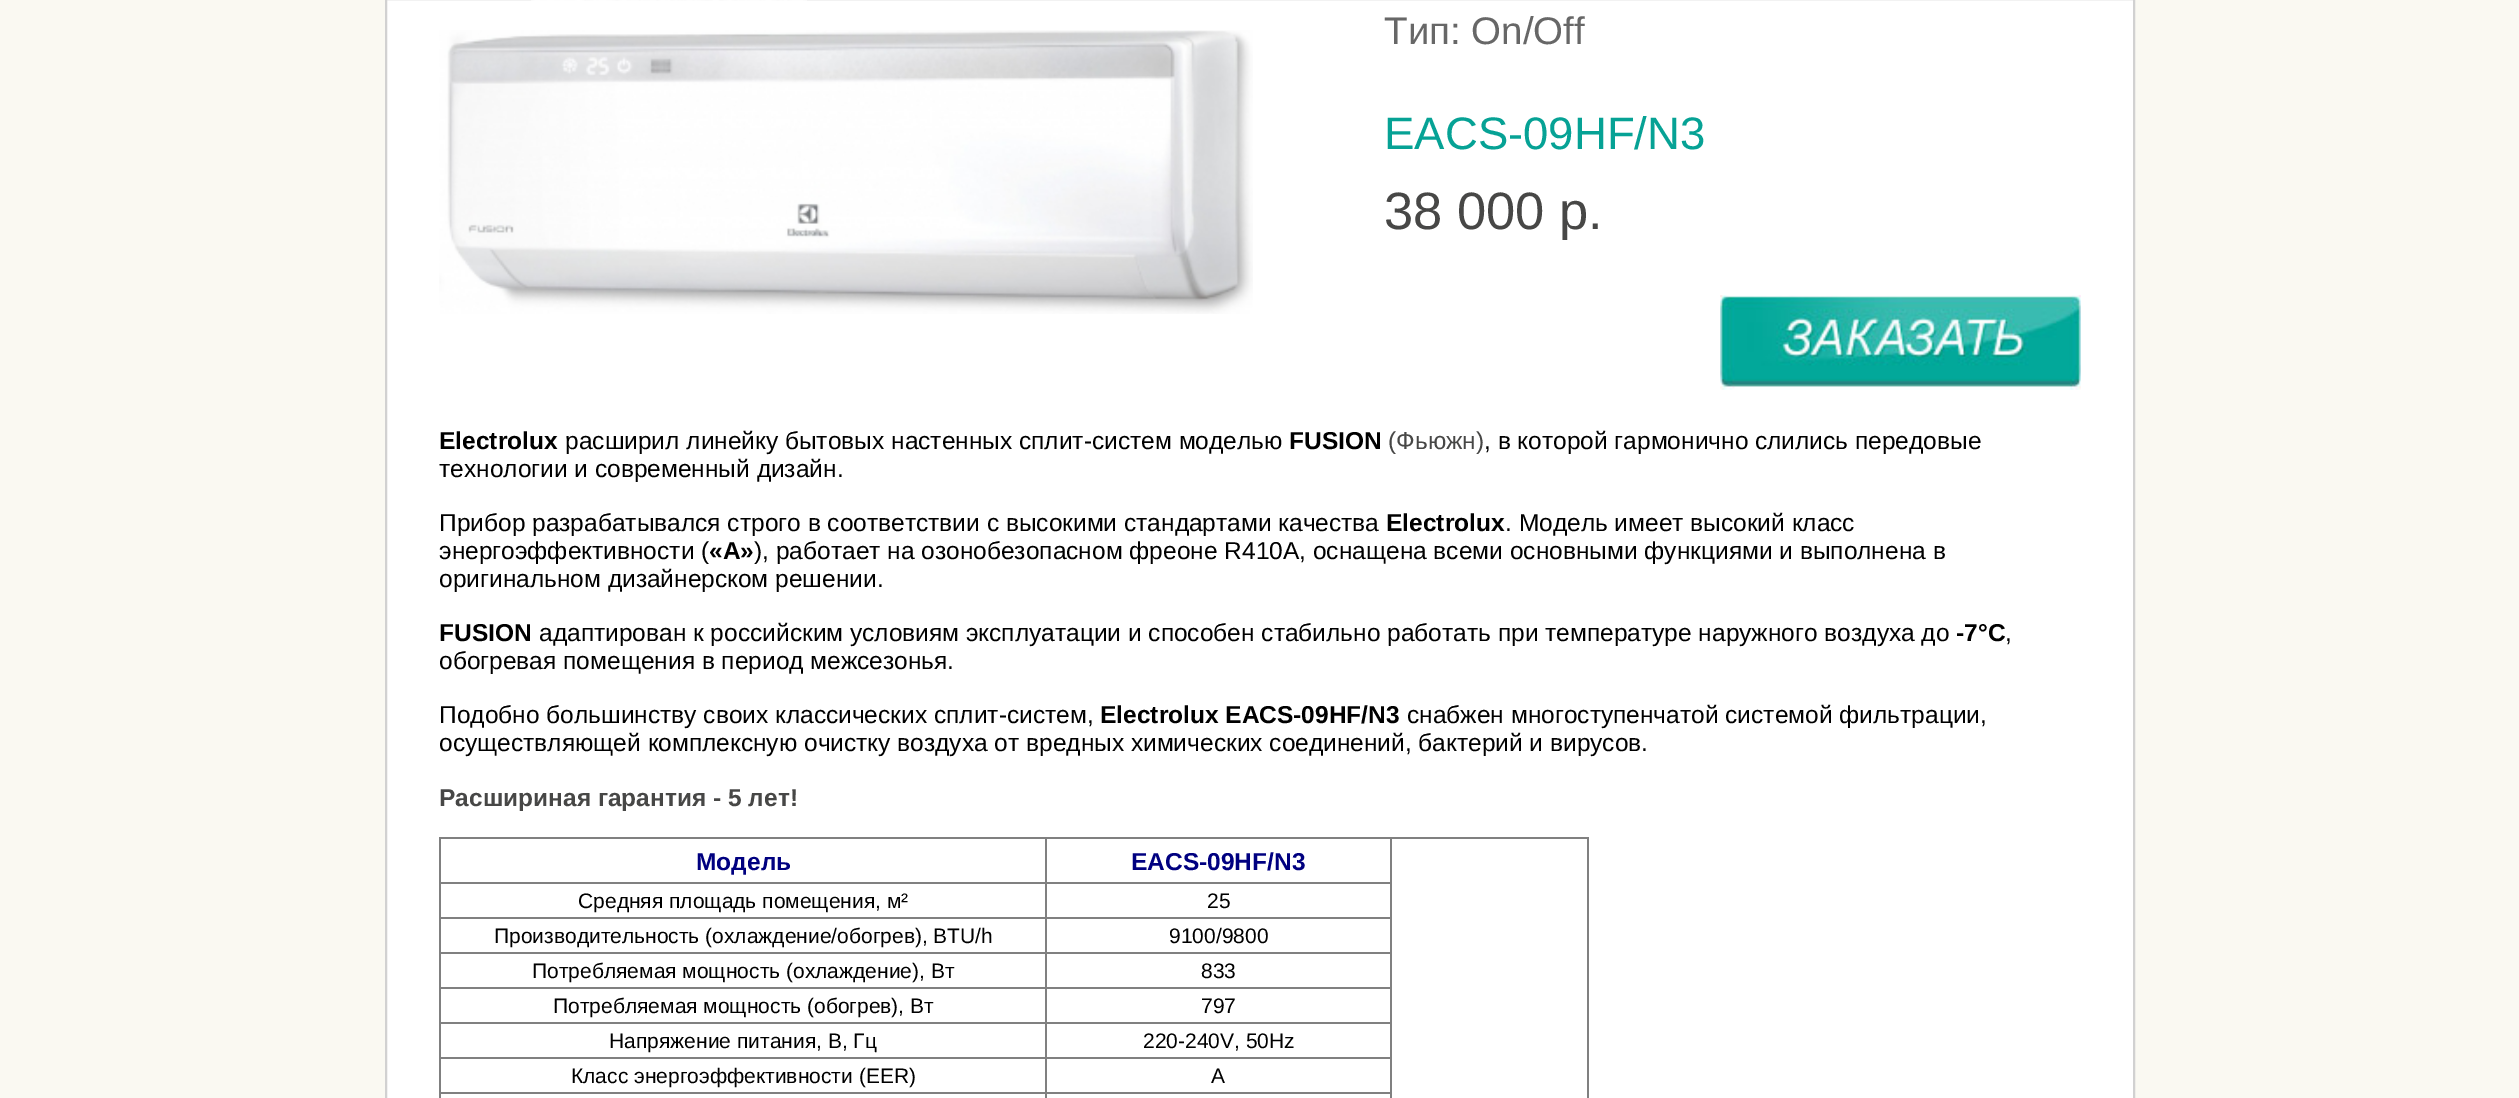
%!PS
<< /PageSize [2519 1098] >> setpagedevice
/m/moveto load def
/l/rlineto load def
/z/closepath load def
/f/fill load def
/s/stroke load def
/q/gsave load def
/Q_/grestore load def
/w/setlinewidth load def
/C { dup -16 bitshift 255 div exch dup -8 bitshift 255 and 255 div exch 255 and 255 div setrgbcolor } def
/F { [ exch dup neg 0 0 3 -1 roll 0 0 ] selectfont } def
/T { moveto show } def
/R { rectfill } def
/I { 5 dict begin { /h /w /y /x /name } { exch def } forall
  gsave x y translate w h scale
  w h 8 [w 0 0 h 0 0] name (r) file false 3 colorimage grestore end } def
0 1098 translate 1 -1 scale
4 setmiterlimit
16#FAF9F2 C
0 0 2519 1098 R
16#FFFFFF C
386 -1 m 1748 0 l 0 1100 l -1748 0 l z q f Q_
16#D1D1D1 C
2 w
s
(1.rgb) 531 0 276 1 I
(2.rgb) 439 30 814 284 I
/LiberationSans-Regular 38.5 F
16#676767 C
(Тип: On/Off) 1384 44 T
/LiberationSans-Regular 45.5 F
16#06A295 C
(EACS-09HF/N3) 1384 149 T
/LiberationSans-Regular 52.5 F
16#474746 C
(38 000 р.) 1384 229 T
(3.rgb) 1720 295 361 95 I
/LiberationSans-Bold 24.5 F
16#000000 C
(Electrolux) 439 449 T
/LiberationSans-Regular 24.5 F
(расширил линейку бытовых настенных сплит-систем моделью) 565 449 T
/LiberationSans-Bold 24.5 F
(FUSION) 1289 449 T
/LiberationSans-Regular 24.5 F
16#474746 C
(\(Фьюжн\)) 1388 449 T
16#000000 C
(, в которой гармонично слились передовые) 1484 449 T
(технологии и современный дизайн.) 439 477 T
(Прибор разрабатывался строго в соответствии с высокими стандартами качества) 439 531 T
/LiberationSans-Bold 24.5 F
(Electrolux) 1386 531 T
/LiberationSans-Regular 24.5 F
(. Модель имеет высокий класс) 1505 531 T
(энергоэффективности \() 439 559 T
/LiberationSans-Bold 24.5 F
(«А») 709 559 T
/LiberationSans-Regular 24.5 F
(\), работает на озонобезопасном фреоне R410А, оснащена всеми основными функциями и выполнена в) 754 559 T
(оригинальном дизайнерском решении.) 439 587 T
/LiberationSans-Bold 24.5 F
(FUSION) 439 641 T
/LiberationSans-Regular 24.5 F
(адаптирован к российским условиям эксплуатации и способен стабильно работать при температуре наружного воздуха до) 539 641 T
/LiberationSans-Bold 24.5 F
(-7°С) 1956 641 T
/LiberationSans-Regular 24.5 F
(,) 2005 641 T
(обогревая помещения в период межсезонья.) 439 669 T
(Подобно большинству своих классических сплит-систем,) 439 723 T
/LiberationSans-Bold 24.5 F
(Electrolux EACS-09HF/N3) 1100 723 T
/LiberationSans-Regular 24.5 F
(снабжен многоступенчатой системой фильтрации,) 1407 723 T
(осуществляющей комплексную очистку воздуха от вредных химических соединений, бактерий и вирусов.) 439 751 T
/LiberationSans-Bold 24.5 F
16#474746 C
(Расшириная гарантия - 5 лет!) 439 806 T
16#808080 C
439 837 1150 2 R
1587 837 2 261 R
439 837 2 261 R
16#000080 C
(Модель) 696 870 T
16#808080 C
1045 882 346 2 R
1045 917 346 2 R
1045 952 346 2 R
1045 987 346 2 R
1045 1022 346 2 R
1045 1057 346 2 R
1045 1092 346 2 R
1045 1092 2 6 R
439 1092 608 2 R
1045 1057 2 37 R
439 1057 608 2 R
1045 1022 2 37 R
439 1022 608 2 R
1045 987 2 37 R
439 987 608 2 R
1045 952 2 37 R
439 952 608 2 R
1045 917 2 37 R
439 917 608 2 R
1045 882 2 37 R
439 882 608 2 R
1045 837 2 47 R
16#000080 C
(EACS-09HF/N3) 1131 870 T
/LiberationSans-Regular 21 F
16#000000 C
(Средняя площадь помещения, м²) 578 908 T
16#808080 C
1390 1092 2 6 R
1390 1057 2 37 R
1390 1022 2 37 R
1390 987 2 37 R
1390 952 2 37 R
1390 917 2 37 R
1390 837 2 82 R
16#000000 C
(25) 1207 908 T
(Производительность \(охлаждение/обогрев\), BTU/h) 494 943 T
(9100/9800) 1169 943 T
(Потребляемая мощность \(охлаждение\), Вт) 532 978 T
(833) 1201 978 T
(Потребляемая мощность \(обогрев\), Вт) 553 1013 T
(797) 1201 1013 T
(Напряжение питания, В, Гц) 609 1048 T
(220-240V, 50Hz) 1143 1048 T
(Класс энергоэффективности \(EER\)) 571 1083 T
(A) 1211 1083 T
showpage
